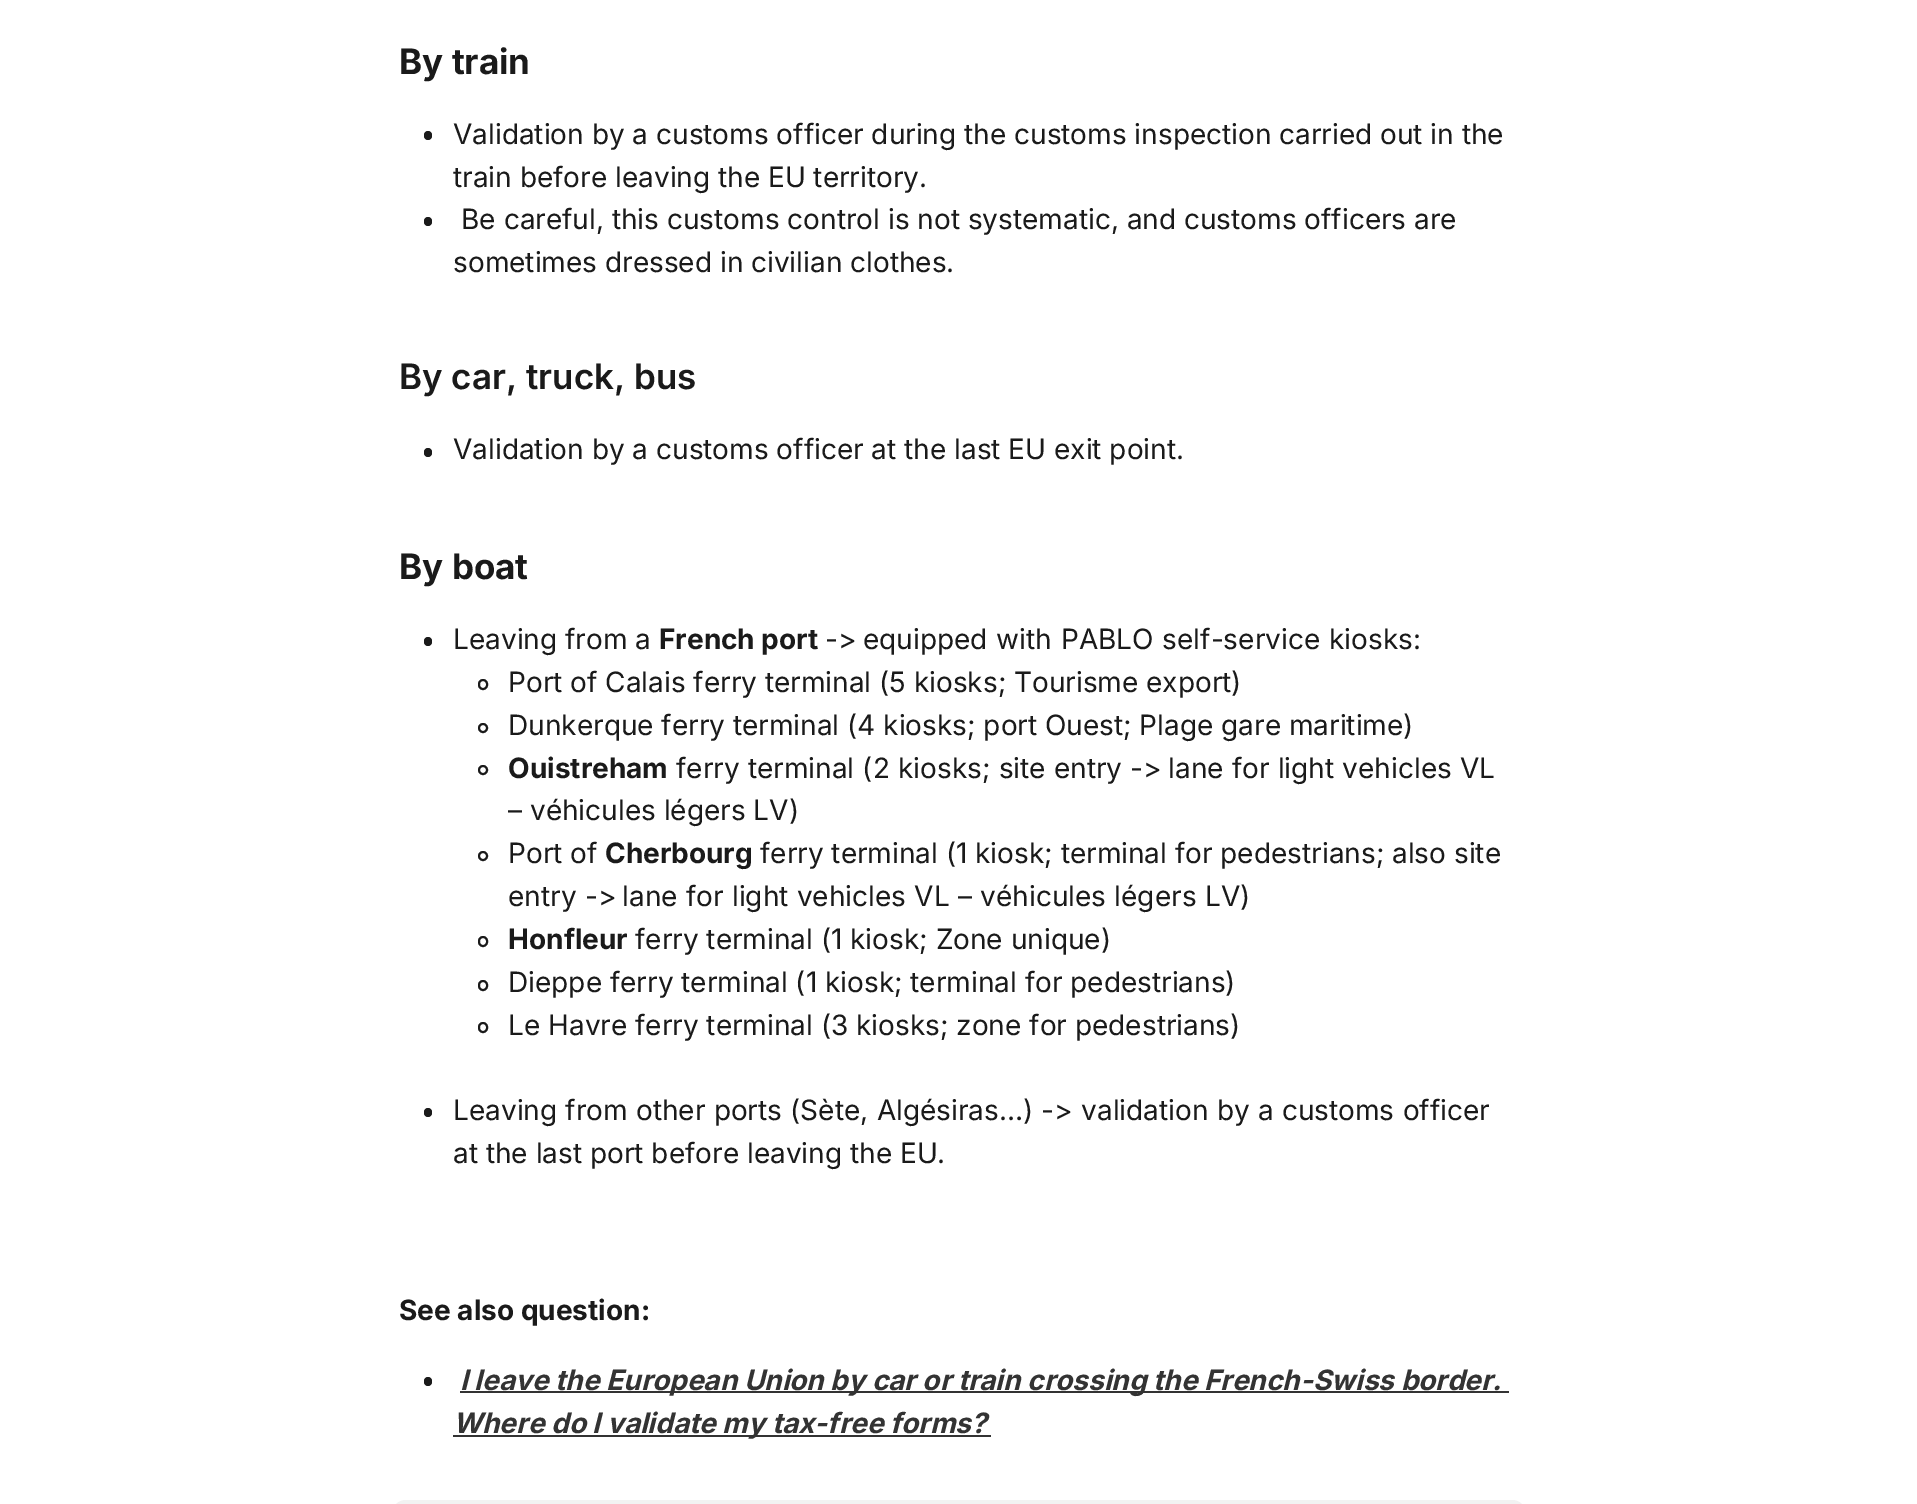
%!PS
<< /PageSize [1917 1504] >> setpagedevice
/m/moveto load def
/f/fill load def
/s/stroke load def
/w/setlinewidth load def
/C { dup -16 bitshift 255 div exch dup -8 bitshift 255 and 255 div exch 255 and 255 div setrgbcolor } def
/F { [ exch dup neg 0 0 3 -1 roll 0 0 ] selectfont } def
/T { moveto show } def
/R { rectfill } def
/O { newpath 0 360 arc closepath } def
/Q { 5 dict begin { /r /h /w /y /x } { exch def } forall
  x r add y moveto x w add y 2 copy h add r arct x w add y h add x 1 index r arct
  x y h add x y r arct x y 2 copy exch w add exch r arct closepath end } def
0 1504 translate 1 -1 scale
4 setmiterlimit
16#FFFFFF C
0 0 1917 1504 R
/Inter-Bold 35 F
16#1A1A1A C
(By train) 399 74 T
424 131 8 9 4 Q f
/Inter-Regular 28 F
(Validation by a customs officer during the customs inspection carried out in the) 453 144 T
(train before leaving the EU territory.) 453 187 T
424 217 8 9 4 Q f
(Be careful, this customs control is not systematic, and customs officers are) 461 229 T
(sometimes dressed in civilian clothes.) 453 272 T
/Inter-SemiBold 35 F
(By car, truck, bus) 399 389 T
424 448 8 9 4 Q f
/Inter-Regular 28 F
(Validation by a customs officer at the last EU exit point.) 453 459 T
/Inter-Bold 35 F
(By boat) 399 579 T
424 637 8 9 4 Q f
/Inter-Regular 28 F
(Leaving from a) 453 649 T
/Inter-Bold 28 F
(French port) 659 649 T
/Inter-Regular 28 F
825 649 m 1 0 32 (->) widthshow
863 649 m 1 0 32 (equipped with PABLO self-service kiosks:) widthshow
2 w
479 680 8 9 4 Q s
(Port of Calais ferry terminal \(5 kiosks; Tourisme export\)) 508 692 T
483 728 4 O s
(Dunkerque ferry terminal \(4 kiosks; port Ouest; Plage gare maritime\)) 508 735 T
483 770 4 O s
/Inter-Bold 28 F
(Ouistreham) 508 778 T
/Inter-Regular 28 F
676 778 m .4 0 32 (ferry terminal \(2 kiosks; site entry ->) widthshow
1168 778 m .4 0 32 (lane for light vehicles VL) widthshow
(– véhicules légers LV\)) 508 820 T
483 856 4 O s
(Port of) 508 863 T
/Inter-Bold 28 F
(Cherbourg) 605 863 T
/Inter-Regular 28 F
(ferry terminal \(1 kiosk; terminal for pedestrians; also site) 760 863 T
508 906 m .5 0 32 (entry ->) widthshow
622 906 m .5 0 32 (lane for light vehicles VL – véhicules légers LV\)) widthshow
479 937 8 9 4 Q s
/Inter-Bold 28 F
(Honfleur) 508 949 T
/Inter-Regular 28 F
(ferry terminal \(1 kiosk; Zone unique\)) 635 949 T
479 981 8 9 4 Q s
(Dieppe ferry terminal \(1 kiosk; terminal for pedestrians\)) 508 992 T
479 1023 8 9 4 Q s
(Le Havre ferry terminal \(3 kiosks; zone for pedestrians\)) 508 1035 T
424 1108 8 9 4 Q f
453 1120 m .4 0 32 (Leaving from other ports \(Sète, Algésiras…\) -> validation by a customs officer) widthshow
(at the last port before leaving the EU.) 453 1163 T
/Inter-Bold 28 F
(See also question:) 399 1320 T
424 1377 8 9 4 Q f
16#333333 C
460 1391 1049 2 R
/Inter-BoldItalic 28 F
(I leave the European Union by car or train crossing the French-Swiss border.) 460 1390 T
453 1435 538 2 R
(Where do I validate my tax-free forms?) 453 1433 T
16#F2F2F2 C
392 1500 1134 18 14 Q f
showpage
